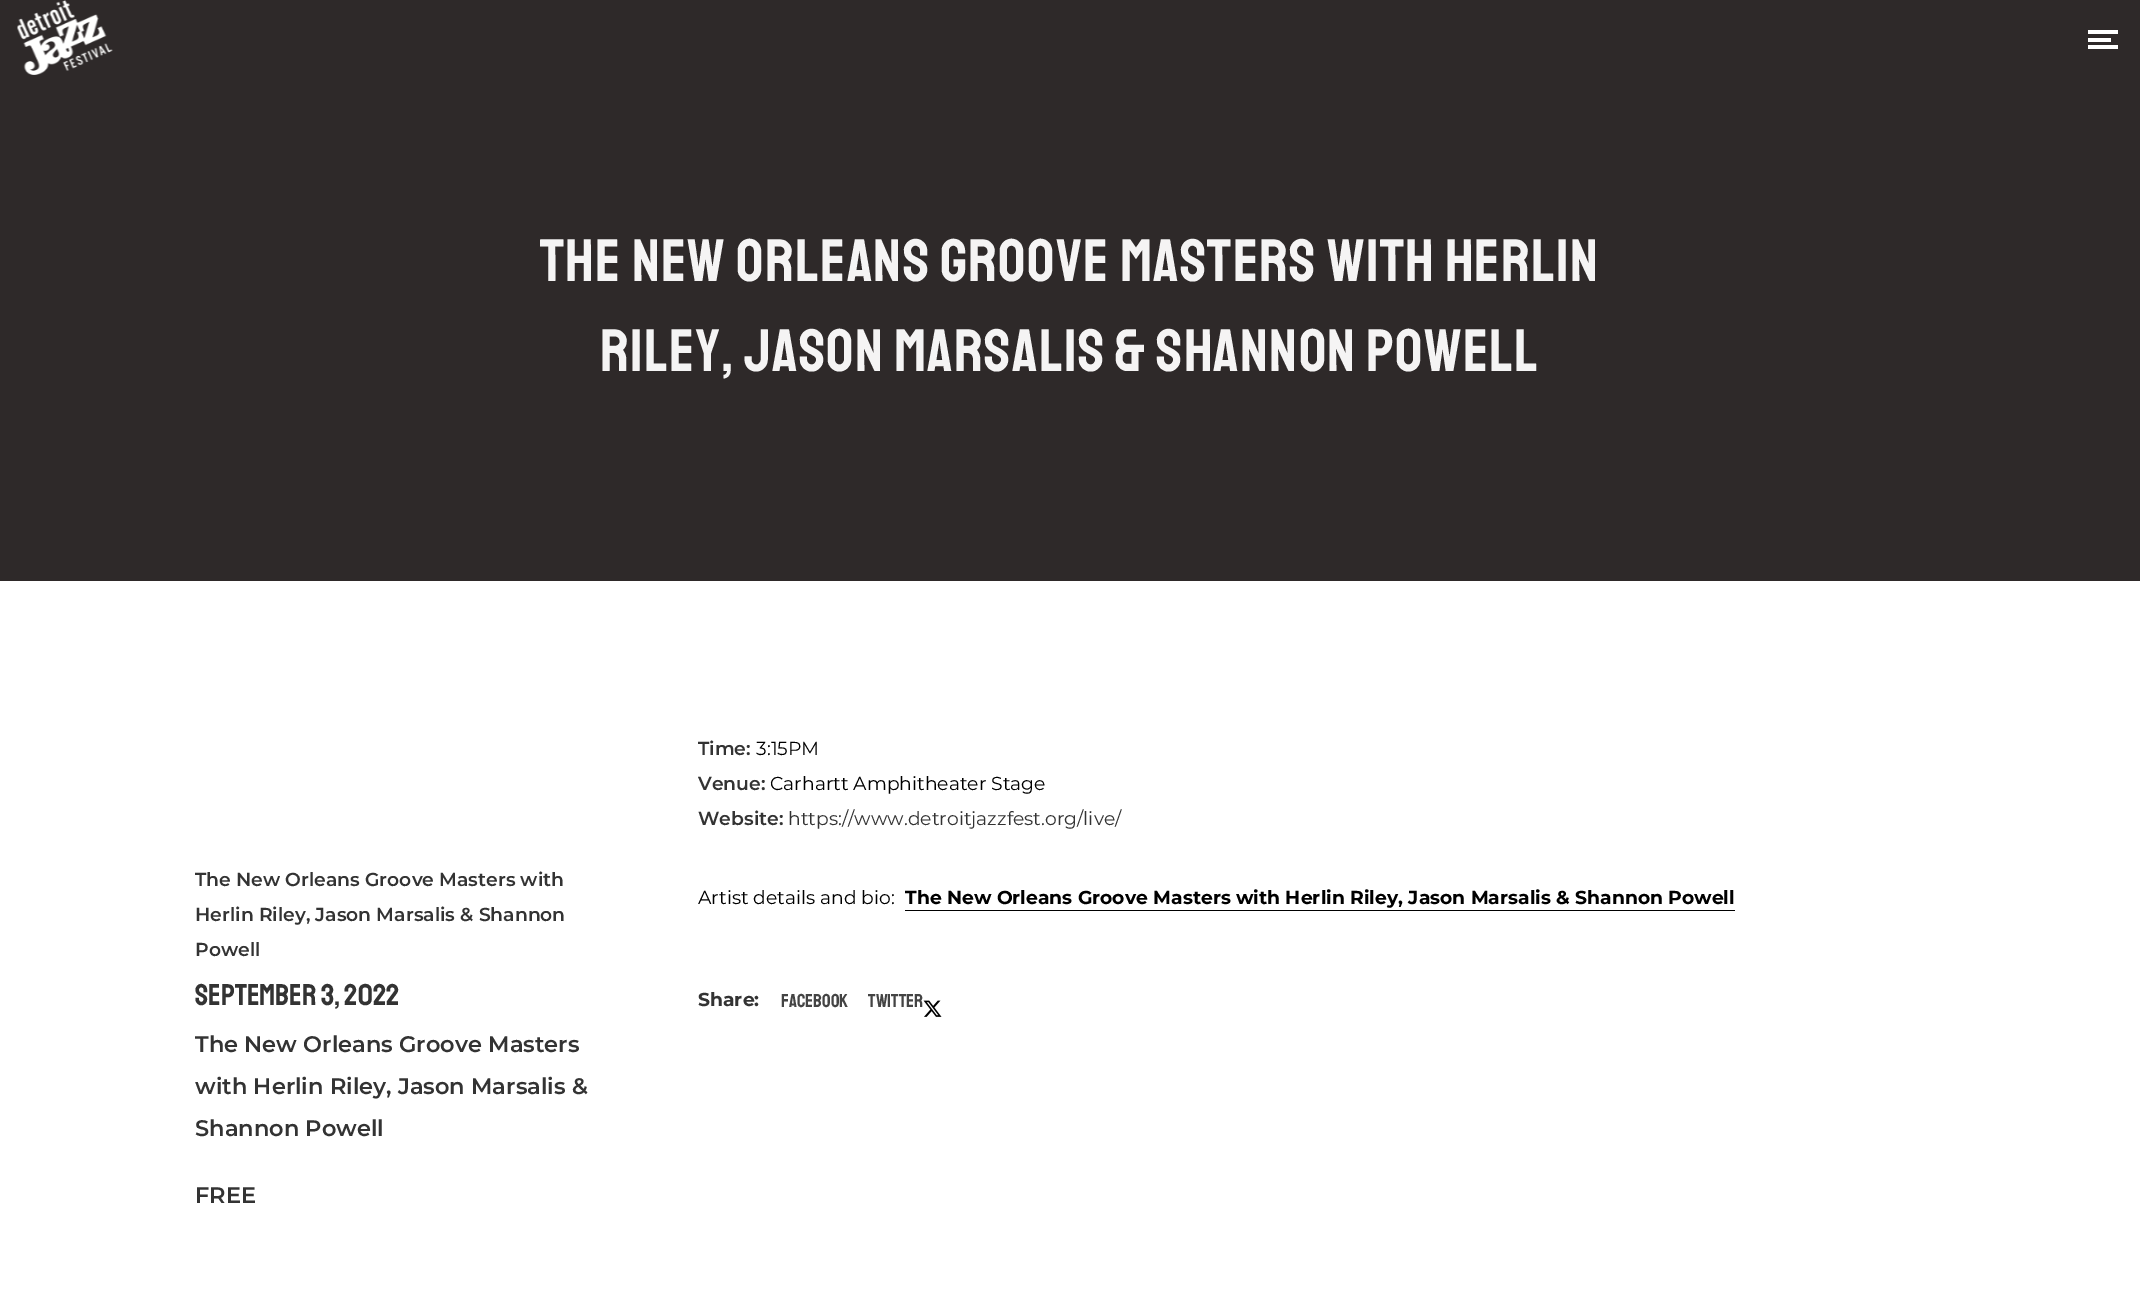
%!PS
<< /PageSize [2140 1292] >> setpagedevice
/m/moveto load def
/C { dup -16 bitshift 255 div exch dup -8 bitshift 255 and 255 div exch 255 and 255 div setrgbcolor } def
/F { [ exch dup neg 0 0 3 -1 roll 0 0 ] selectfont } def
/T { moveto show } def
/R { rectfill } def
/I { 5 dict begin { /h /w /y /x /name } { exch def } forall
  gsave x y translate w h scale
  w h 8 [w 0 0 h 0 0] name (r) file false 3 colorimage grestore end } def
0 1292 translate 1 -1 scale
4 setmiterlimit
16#FFFFFF C
0 0 2140 1292 R
16#2E2929 C
0 0 2140 581 R
(1.rgb) 17 0 96 75 I
16#FFFFFF C
2088 30 30 4 R
2088 38 23 4 R
2088 45 30 4 R
/Staatliches-Regular 60 F
16#F5F4F4 C
540 281 m 1.25 0 (THE NEW ORLEANS GROOVE MASTERS WITH HERLIN) ashow
600 371 m 1.25 0 (RILEY, JASON MARSALIS & SHANNON POWELL) ashow
/Montserrat-SemiBold 18.75 F
16#333333 C
(The New Orleans Groove Masters with) 195 886 T
(Herlin Riley, Jason Marsalis & Shannon) 195 921 T
(Powell) 195 956 T
/Staatliches-Regular 30 F
(September 3, 2022) 195 1005 T
/Montserrat-SemiBold 22.5 F
(The New Orleans Groove Masters) 195 1052 T
(with Herlin Riley, Jason Marsalis &) 195 1094 T
(Shannon Powell) 195 1136 T
(FREE) 195 1203 T
/Montserrat-SemiBold 18.75 F
(Time:) 698 755 T
/Montserrat-Regular 18.75 F
16#000000 C
(3:15PM) 756 755 T
/Montserrat-SemiBold 18.75 F
16#333333 C
(Venue:) 698 790 T
/Montserrat-Regular 18.75 F
16#000000 C
(Carhartt Amphitheater Stage) 770 790 T
/Montserrat-SemiBold 18.75 F
16#333333 C
(Website:) 698 825 T
/Montserrat-Regular 18.75 F
(https://www.detroitjazzfest.org/live/) 788 825 T
16#000000 C
(Artist details and bio:) 698 904 T
/Montserrat-Bold 18.75 F
(The New Orleans Groove Masters with Herlin Riley, Jason Marsalis & Shannon Powell) 905 904 T
905 910 830 1 R
16#333333 C
(Share:) 698 1006 T
/Staatliches-Regular 18.75 F
16#444444 C
(Facebook) 781 1007 T
(Twitter) 868 1007 T
(2.rgb) 923 1000 19 17 I
showpage
